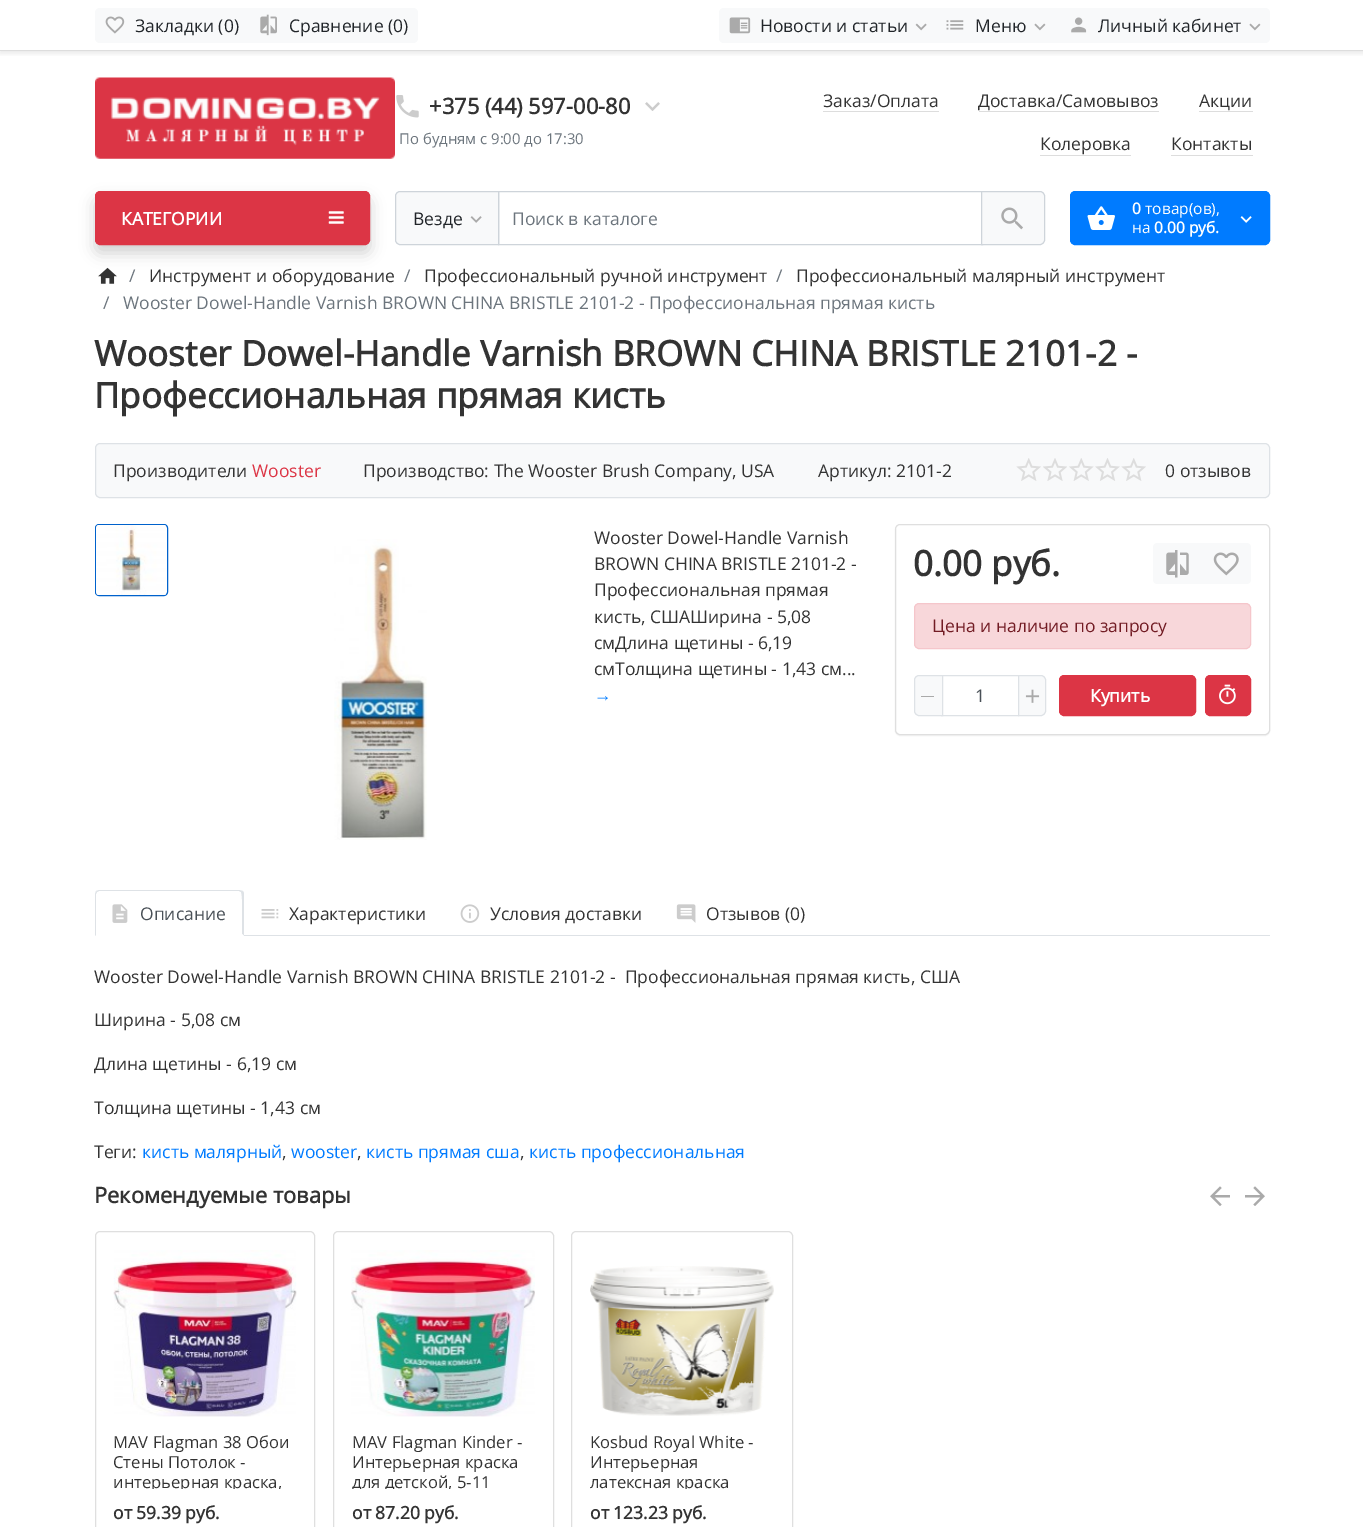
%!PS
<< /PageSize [1363 1527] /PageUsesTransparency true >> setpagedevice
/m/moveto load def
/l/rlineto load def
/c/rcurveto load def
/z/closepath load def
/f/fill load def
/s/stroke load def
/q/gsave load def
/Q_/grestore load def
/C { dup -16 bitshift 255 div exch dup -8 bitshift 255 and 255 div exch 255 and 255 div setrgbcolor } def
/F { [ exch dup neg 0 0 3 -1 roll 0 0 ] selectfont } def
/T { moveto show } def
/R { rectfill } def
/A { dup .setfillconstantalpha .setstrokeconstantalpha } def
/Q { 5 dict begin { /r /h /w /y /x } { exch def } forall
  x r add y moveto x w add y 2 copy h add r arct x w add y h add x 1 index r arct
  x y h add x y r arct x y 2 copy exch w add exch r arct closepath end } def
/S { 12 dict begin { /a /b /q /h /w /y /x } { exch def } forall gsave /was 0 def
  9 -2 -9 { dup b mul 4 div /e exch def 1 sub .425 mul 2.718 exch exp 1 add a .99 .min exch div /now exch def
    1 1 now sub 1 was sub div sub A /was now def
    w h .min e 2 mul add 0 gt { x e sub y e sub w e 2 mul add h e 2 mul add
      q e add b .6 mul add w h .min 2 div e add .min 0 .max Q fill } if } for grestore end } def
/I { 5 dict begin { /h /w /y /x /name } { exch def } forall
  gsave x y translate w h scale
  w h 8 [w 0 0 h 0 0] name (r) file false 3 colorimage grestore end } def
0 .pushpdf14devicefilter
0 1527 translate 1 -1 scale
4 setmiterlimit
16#FFFFFF C
0 0 1363 1527 R
q
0 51 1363 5 rectclip
16#000000 C
0 1 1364 52 0 3 .1 S
Q_
16#DDDDDD C
0 50 1363 1 R
16#F8F9FA C
100 8 m 149 0 l 0 35 l -149 0 l -3 0 -5 -2 -5 -5 c 0 -25 l 0 -3 2 -5 5 -5 c z f
(1.rgb) 105 16 20 18 I
/OpenSans-Regular 17.5 F
16#212529 C
(Закладки \(0\)) 135 32 T
16#F8F9FA C
248 8 m 165 0 l 3 0 5 2 5 5 c 0 25 l 0 3 -2 5 -5 5 c -165 0 l z f
(2.rgb) 260 14 17 22 I
16#212529 C
(Сравнение \(0\)) 289 32 T
16#F8F9FA C
724 8 m 212 0 l 0 35 l -212 0 l -3 0 -5 -2 -5 -5 c 0 -25 l 0 -3 2 -5 5 -5 c z f
(3.rgb) 729 17 22 17 I
16#212529 C
(Новости и статьи) 760 32 T
(4.rgb) 915 23 12 8 I
16#F8F9FA C
936 8 117 35 R
(5.rgb) 946 20 18 10 I
16#212529 C
(Меню) 975 32 T
(6.rgb) 1034 23 12 8 I
16#F8F9FA C
1053 8 m 212 0 l 3 0 5 2 5 5 c 0 25 l 0 3 -2 5 -5 5 c -212 0 l z f
(7.rgb) 1071 17 16 16 I
16#212529 C
(Личный кабинет) 1098 32 T
(6.rgb) 1249 23 12 8 I
(8.rgb) 95 77 300 82 I
(9.rgb) 396 95 23 23 I
/OpenSans-Bold 21.9 F
16#333333 C
(+375 \(44\) 597-00-80) 429 114 T
(10.rgb) 645 102 15 9 I
/OpenSans-Regular 14.9 F
16#6C757D C
(По будням с 9:00 до 17:30) 399 144 T
/OpenSans-Regular 17.5 F
16#333333 C
(Заказ/Оплата) 823 107 T
16#DDDDDD C
823 111 116 1 R
16#333333 C
(Доставка/Самовывоз) 978 107 T
16#DDDDDD C
979 111 180 1 R
16#333333 C
(Акции) 1199 107 T
16#DDDDDD C
1199 111 54 1 R
16#333333 C
(Колеровка) 1040 150 T
16#DDDDDD C
1040 155 91 1 R
16#333333 C
(Контакты) 1171 150 T
16#DDDDDD C
1171 155 82 1 R
(16.rgb) 98 267 19 17 I
16#000000 C
95 199 275 54 5 7.5 .18 S
16#DC3545 C
95.5 191.5 274 53 4.5 Q q f Q_
s
/OpenSans-Bold 17.5 F
16#FFFFFF C
(КАТЕГОРИИ) 121 225 T
(11.rgb) 328 211 16 13 I
16#CED4DA C
498.5 191.5 484 53 rectstroke
16#F8F9FA C
400 191.5 m 98.5 0 l 0 53 l -98.5 0 l -2.5 0 -4.5 -2 -4.5 -4.5 c 0 -44 l 0 -2.5 2 -4.5 4.5 -4.5 c z q f Q_
16#CED4DA C
s
/OpenSans-Regular 17.5 F
16#212529 C
(Везде) 413 225 T
(12.rgb) 470 216 12 7 I
16#6C757D C
(Поиск в каталоге) 512 225 T
16#F8F9FA C
981.5 191.5 m 58.5 0 l 2.5 0 4.5 2 4.5 4.5 c 0 44 l 0 2.5 -2 4.5 -4.5 4.5 c -58.5 0 l z q f Q_
16#CED4DA C
s
(13.rgb) 1001 207 22 23 I
16#007BFF C
1070.5 191.5 199 53 4.5 Q q f Q_
s
(14.rgb) 1087 206 28 24 I
/OpenSans-Bold 15.5 F
16#FFFFFF C
(0) 1132 214 T
/OpenSans-Regular 15.5 F
(товар\(ов\),) 1145 214 T
(на) 1132 233 T
/OpenSans-Bold 15.5 F
(0.00 руб.) 1154 233 T
(15.rgb) 1240 216 12 7 I
/OpenSans-Regular 17.5 F
16#6C757D C
(/) 129 282 T
16#333333 C
(Инструмент и оборудование) 149 282 T
16#6C757D C
(/) 404 282 T
16#333333 C
(Профессиональный ручной инструмент) 424 282 T
16#6C757D C
(/) 776 282 T
16#333333 C
(Профессиональный малярный инструмент) 796 282 T
16#6C757D C
(/) 103 309 T
(Wooster Dowel-Handle Varnish BROWN CHINA BRISTLE 2101-2 - Профессиональная прямая кисть) 123 309 T
/OpenSans-Bold 35 F
16#333333 C
(Wooster Dowel-Handle Varnish BROWN CHINA BRISTLE 2101-2 -) 94 366 T
(Профессиональная прямая кисть) 94 408 T
16#F8F9FA C
95.5 443.5 1174 54 4.5 Q q f Q_
16#DEE2E6 C
s
/OpenSans-Regular 17.5 F
16#333333 C
(Производители) 113 477 T
16#DC3545 C
(Wooster) 252 477 T
16#333333 C
(Производство: The Wooster Brush Company, USA) 363 477 T
(Артикул: 2101-2) 818 477 T
(17.rgb) 1016 458 25 23 I
(18.rgb) 1043 458 24 23 I
(19.rgb) 1069 458 25 23 I
(20.rgb) 1095 458 25 23 I
(17.rgb) 1121 458 25 23 I
(0 отзывов) 1165 477 T
16#0062CC C
95.5 524.5 72 71 3.5 Q s
(21.rgb) 96 525 70 70 I
(22.rgb) 334 539 93 301 I
16#333333 C
(Wooster Dowel-Handle Varnish) 594 544 T
(BROWN CHINA BRISTLE 2101-2 -) 594 570 T
(Профессиональная прямая) 594 596 T
(кисть, СШАШирина - 5,08) 594 623 T
(смДлина щетины - 6,19) 594 649 T
(смТолщина щетины - 1,43 см...) 594 675 T
/LiberationSans-Regular 17.5 F
16#007BFF C
(→) 594 701 T
q
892 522 m 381 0 l 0 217 l -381 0 l z 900 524 m 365 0 l 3 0 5 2 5 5 c 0 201 l 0 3 -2 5 -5 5 c -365 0 l -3 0 -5 -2 -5 -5 c 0 -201 l 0 -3 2 -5 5 -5 c z eoclip newpath
16#000000 C
895 525 375 211 5 .5 .05 S
Q_
16#DFDFDF C
895.5 524.5 374 210 4.5 Q s
/OpenSans-Bold 35 F
16#333333 C
(0.00 руб.) 913 576 T
16#F8F9FA C
1157 543 m 46 0 l 0 41 l -46 0 l -2 0 -4 -2 -4 -4 c 0 -33 l 0 -2 2 -4 4 -4 c z f
(23.rgb) 1166 550 23 28 I
1201 543 m 46 0 l 2 0 4 2 4 4 c 0 33 l 0 2 -2 4 -4 4 c -46 0 l z f
(24.rgb) 1213 552 26 24 I
16#F8D7DA C
914.5 603.5 336 45 4.5 Q q f Q_
16#F5C6CB C
s
/OpenSans-Regular 17.5 F
16#721C24 C
(Цена и наличие по запросу) 932 632 T
16#DEE2E6 C
941.5 675.5 77 40 rectstroke
16#F8F9FA C
919 675.5 m 23.5 0 l 0 40 l -23.5 0 l -2.5 0 -4.5 -2 -4.5 -4.5 c 0 -31 l 0 -2.5 2 -4.5 4.5 -4.5 c z q f Q_
16#DEE2E6 C
s
16#AAAAAA C
921 696 13 1 R
16#495057 C
(1) 975 702 T
16#F8F9FA C
1018.5 675.5 m 22.5 0 l 2.5 0 4.5 2 4.5 4.5 c 0 31 l 0 2.5 -2 4.5 -4.5 4.5 c -22.5 0 l z q f Q_
16#DEE2E6 C
s
(25.rgb) 1025 689 15 14 I
16#DC3545 C
1059.5 675.5 136 40 4.5 Q q f Q_
s
/OpenSans-Bold 17.5 F
16#FFFFFF C
(Купить) 1090 702 T
16#DC3545 C
1205.5 675.5 45 40 4.5 Q q f Q_
s
(26.rgb) 1219 684 17 21 I
16#DEE2E6 C
244 935 1026 1 R
99 890 m -3 1 l 1 1 l 2 -1 l 140 0 l 2 1 l 2 -1 l -4 -1 l z f
244 936 m -2 -2 l 0 -5 1 -39 -1 -42 c 2 -1 l 1 2 l z f
16#FFFFFF C
244 936 m -149 0 l 1 -1 l 146 0 l 0 -1 l z f
16#DEE2E6 C
95 894 m 0 42 l 1 -1 l 0 -41 l 1 -2 l -1 -1 l z f
(27.rgb) 112 904 16 19 I
/OpenSans-Regular 17.5 F
16#495057 C
(Описание) 140 920 T
(28.rgb) 261 909 18 10 I
16#333333 C
(Характеристики) 289 920 T
(29.rgb) 460 904 20 19 I
(Условия доставки) 490 920 T
(30.rgb) 676 904 20 19 I
(Отзывов \(0\)) 706 920 T
(Wooster Dowel-Handle Varnish BROWN CHINA BRISTLE 2101-2 -  Профессиональная прямая кисть, США) 94 983 T
(Ширина - 5,08 см) 94 1026 T
(Длина щетины - 6,19 см) 94 1070 T
(Толщина щетины - 1,43 см) 94 1114 T
(Теги:) 94 1158 T
16#007BFF C
(кисть малярный) 142 1158 T
16#333333 C
(,) 282 1158 T
16#007BFF C
(wooster) 291 1158 T
16#333333 C
(,) 357 1158 T
16#007BFF C
(кисть прямая сша) 366 1158 T
16#333333 C
(,) 520 1158 T
16#007BFF C
(кисть профессиональная) 529 1158 T
/OpenSans-Bold 21.9 F
16#333333 C
(Рекомендуемые товары) 94 1203 T
(31.rgb) 1210 1186 20 20 I
(32.rgb) 1245 1186 20 20 I
16#DFDFDF C
95.5 1231.5 219 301 4.5 Q s
(33.rgb) 113 1250 184 167 I
/OpenSans-Regular 16.6 F
16#333333 C
(MAV Flagman 38 Обои) 113 1448 T
(Стены Потолок -) 113 1468 T
q
114 1434 182 55 rectclip
(интерьерная краска,) 113 1488 T
Q_
/OpenSans-Bold 17.5 F
(от 59.39 руб.) 113 1519 T
16#DFDFDF C
333.5 1231.5 220 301 4.5 Q s
(34.rgb) 351 1250 184 167 I
/OpenSans-Regular 16.6 F
16#333333 C
(MAV Flagman Kinder -) 352 1448 T
(Интерьерная краска) 352 1468 T
q
351 1434 184 55 rectclip
(для детской, 5-11) 352 1488 T
Q_
/OpenSans-Bold 17.5 F
(от 87.20 руб.) 352 1519 T
16#DFDFDF C
571.5 1231.5 221 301 4.5 Q s
(35.rgb) 590 1266 184 150 I
/OpenSans-Regular 16.6 F
16#333333 C
(Kosbud Royal White -) 590 1448 T
(Интерьерная) 590 1468 T
q
590 1434 184 55 rectclip
(латексная краска) 590 1488 T
Q_
/OpenSans-Bold 17.5 F
(от 123.23 руб.) 590 1519 T
.poppdf14devicefilter showpage
